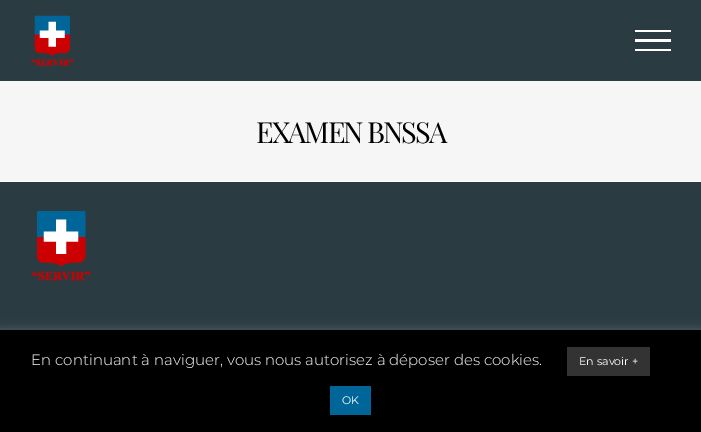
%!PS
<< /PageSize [701 432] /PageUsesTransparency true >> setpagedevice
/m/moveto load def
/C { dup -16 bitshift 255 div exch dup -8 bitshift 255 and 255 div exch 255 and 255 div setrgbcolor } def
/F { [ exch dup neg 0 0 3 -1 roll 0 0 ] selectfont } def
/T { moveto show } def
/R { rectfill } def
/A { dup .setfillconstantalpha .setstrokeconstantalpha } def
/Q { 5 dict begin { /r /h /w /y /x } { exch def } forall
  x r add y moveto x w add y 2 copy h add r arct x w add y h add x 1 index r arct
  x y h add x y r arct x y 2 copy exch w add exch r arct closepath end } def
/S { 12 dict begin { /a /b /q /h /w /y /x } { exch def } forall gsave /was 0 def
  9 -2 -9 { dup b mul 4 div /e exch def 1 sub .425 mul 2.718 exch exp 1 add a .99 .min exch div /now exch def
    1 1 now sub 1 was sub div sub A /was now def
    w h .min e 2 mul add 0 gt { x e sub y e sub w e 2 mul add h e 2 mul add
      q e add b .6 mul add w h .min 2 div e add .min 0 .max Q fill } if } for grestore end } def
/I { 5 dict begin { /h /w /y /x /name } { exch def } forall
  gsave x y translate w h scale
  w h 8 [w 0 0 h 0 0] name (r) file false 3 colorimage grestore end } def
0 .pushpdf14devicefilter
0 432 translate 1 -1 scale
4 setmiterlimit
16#FFFFFF C
0 0 701 432 R
16#2B3B42 C
0 0 701 81 R
(1.rgb) 31 15 43 51 I
16#FFFFFF C
635 30 36 2 R
635 39 36 3 R
635 49 36 2 R
16#F6F6F6 C
0 81 701 100 R
/PlayfairDisplay-Regular 29 F
16#000000 C
256 143 m -2 0 (EXAMEN BNSSA) ashow
16#2B3B42 C
0 182 701 148 R
(2.rgb) 32 211 59 70 I
16#ACABAB C
0 329 701 102 0 5 .3 S
16#000000 C
0 330 701 102 R
/Montserrat-Light 15 F
16#FFFFFF C
(En continuant à naviguer, vous nous autorisez à déposer des cookies.) 31 365 T
16#333333 C
567 347 83 29 R
/Montserrat-Regular 11 F
16#FFFFFF C
(En savoir +) 579 365 T
16#006699 C
330 386 41 29 R
16#FFFFFF C
(OK) 342 404 T
.poppdf14devicefilter showpage
